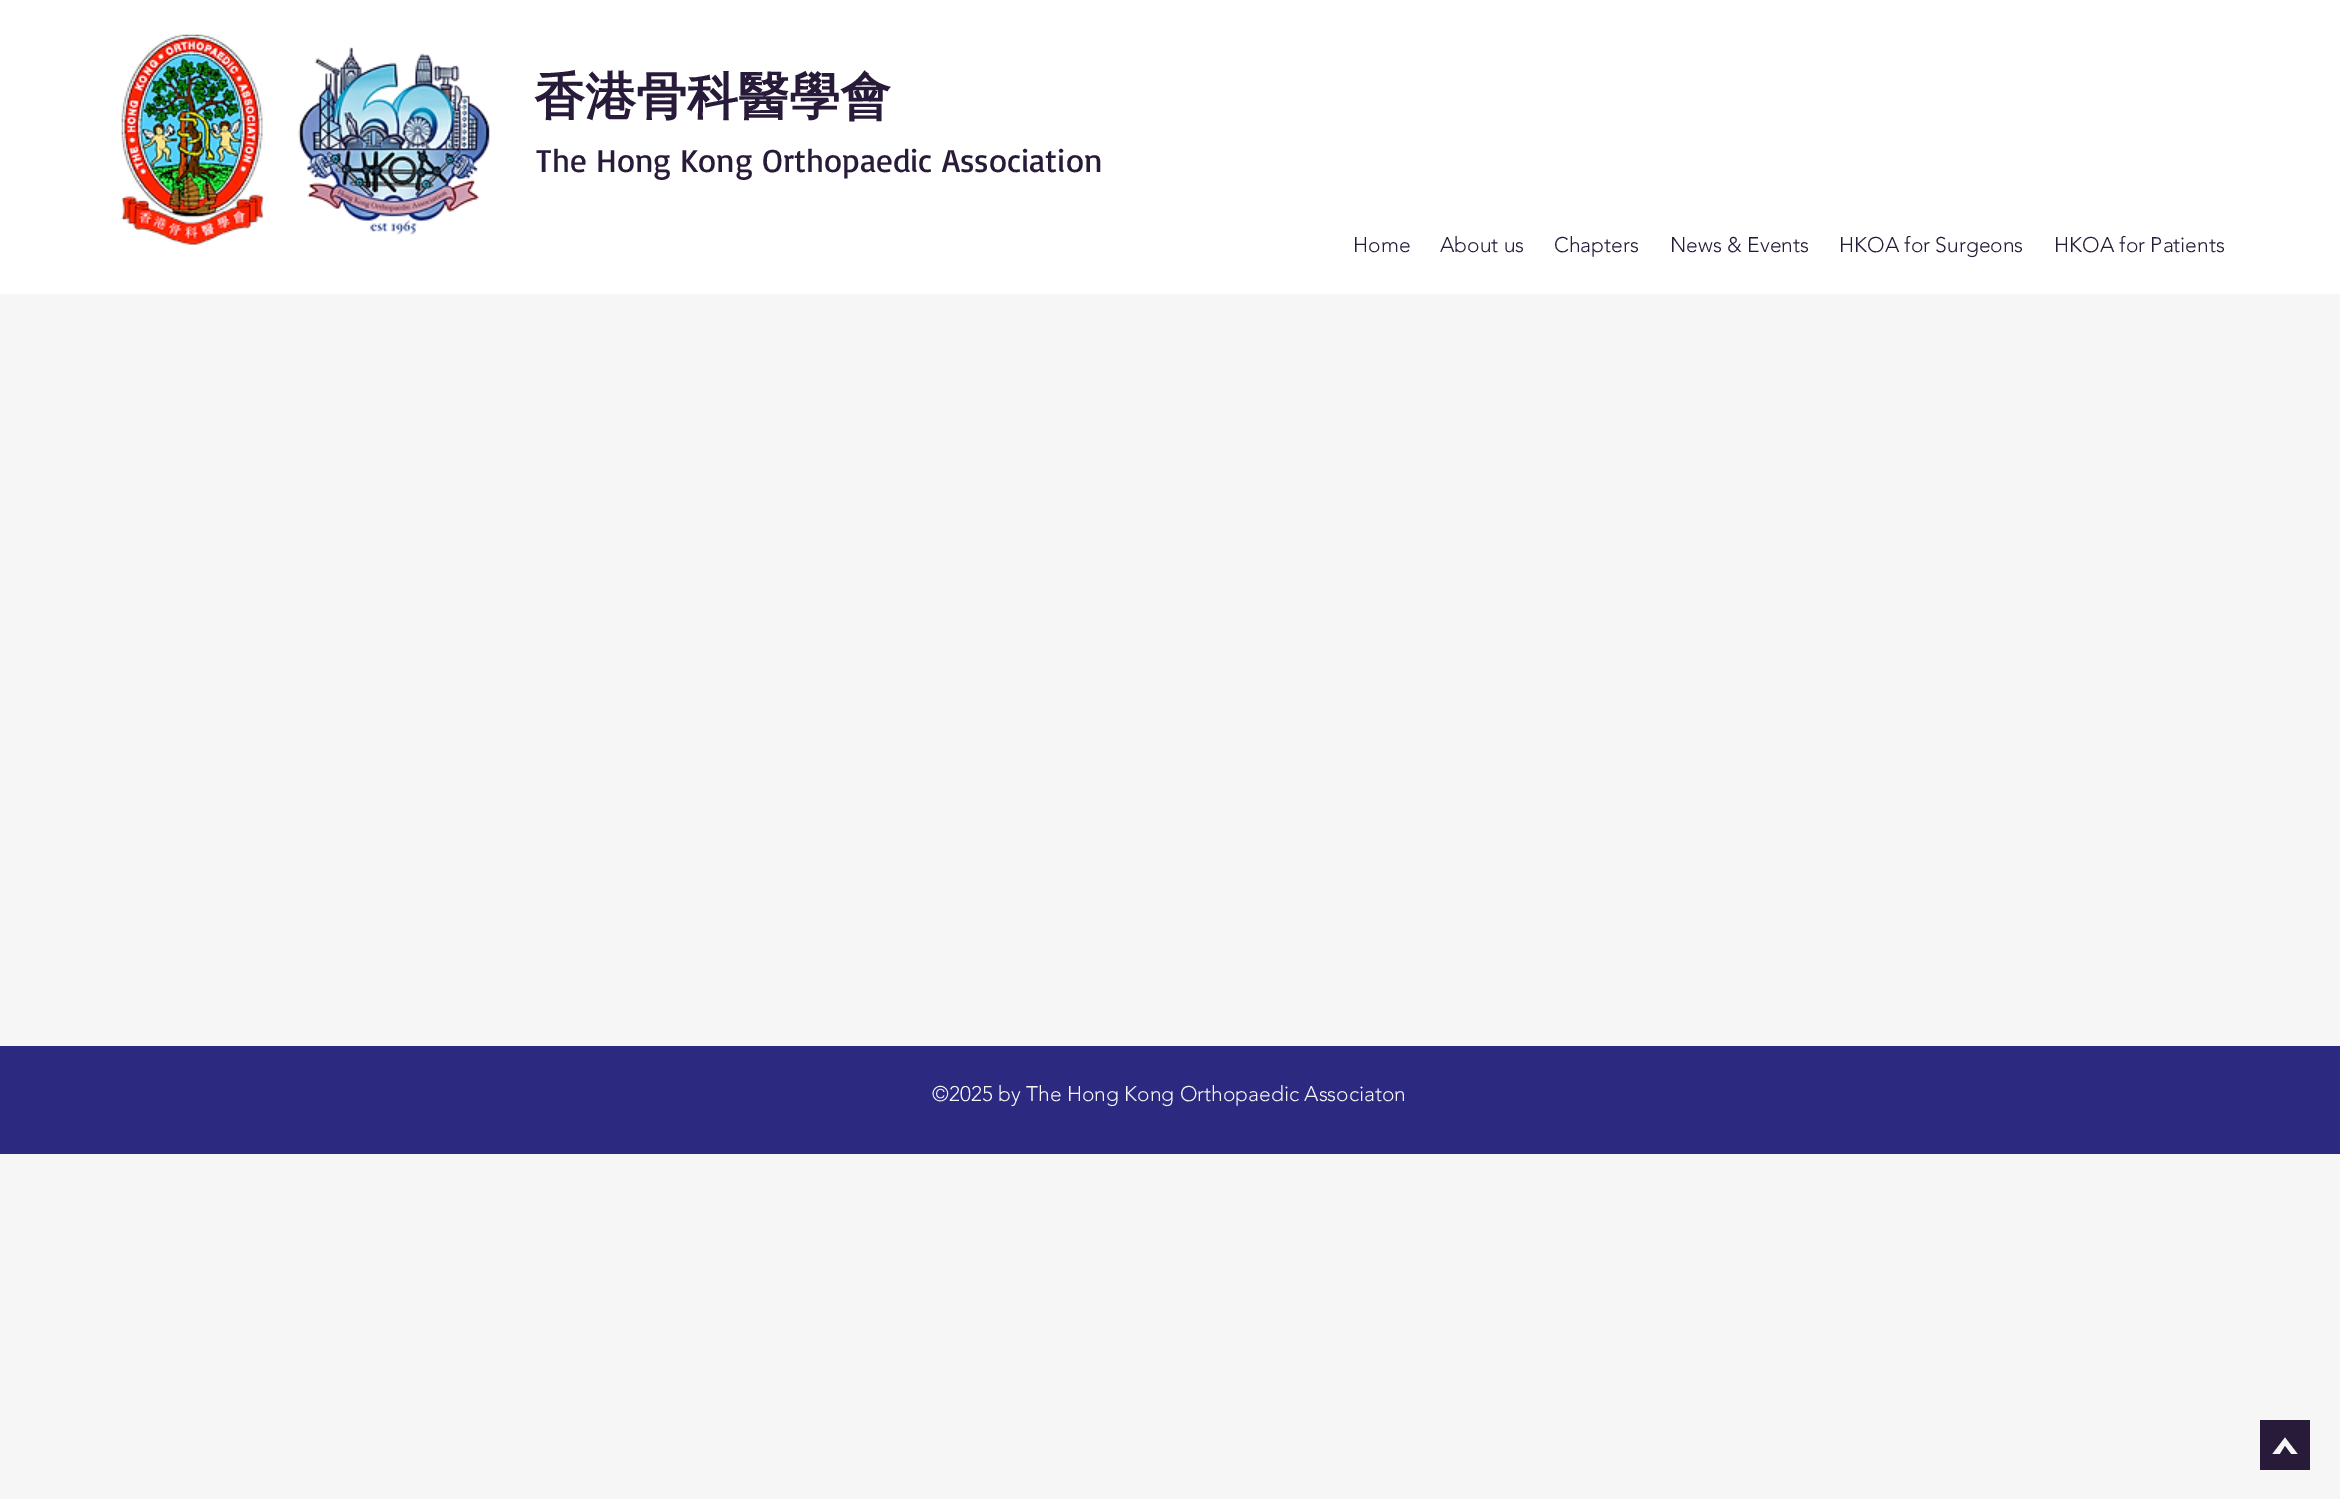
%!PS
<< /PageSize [2340 1499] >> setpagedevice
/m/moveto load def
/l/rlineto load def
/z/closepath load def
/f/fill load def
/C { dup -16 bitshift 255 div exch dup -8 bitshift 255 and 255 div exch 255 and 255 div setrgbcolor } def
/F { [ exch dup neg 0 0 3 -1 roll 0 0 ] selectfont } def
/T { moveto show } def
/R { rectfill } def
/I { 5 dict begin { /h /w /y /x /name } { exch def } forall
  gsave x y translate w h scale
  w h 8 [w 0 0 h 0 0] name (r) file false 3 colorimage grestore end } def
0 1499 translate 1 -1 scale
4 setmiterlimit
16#F6F6F6 C
0 0 2340 1499 R
16#FFFFFF C
0 0 2340 294 R
(1.rgb) 121 34 143 211 I
(2.rgb) 298 47 192 188 I
/WenQuanYiZenHei-Bold 51 F
16#281A39 C
(香港骨科醫學會) 534 114 T
/Basic-Regular 33 F
(The Hong Kong Orthopaedic Association) 536 172 T
/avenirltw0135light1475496-Light 21 F
(Home) 1353 252 T
(About us) 1440 252 T
(Chapters) 1554 252 T
(News & Events) 1670 252 T
(HKOA for Surgeons) 1839 252 T
(HKOA for Patients) 2054 252 T
16#2C2981 C
0 1046 2340 108 R
16#F6F6F6 C
(©2025 by The Hong Kong Orthopaedic Associaton) 932 1101 T
16#281A39 C
2260 1420 m 0 50 l 50 0 l 0 -50 l z 2291 1454 m -6 -8 l -5 8 l -8 0 l 13 -17 l 13 17 l z f
showpage
